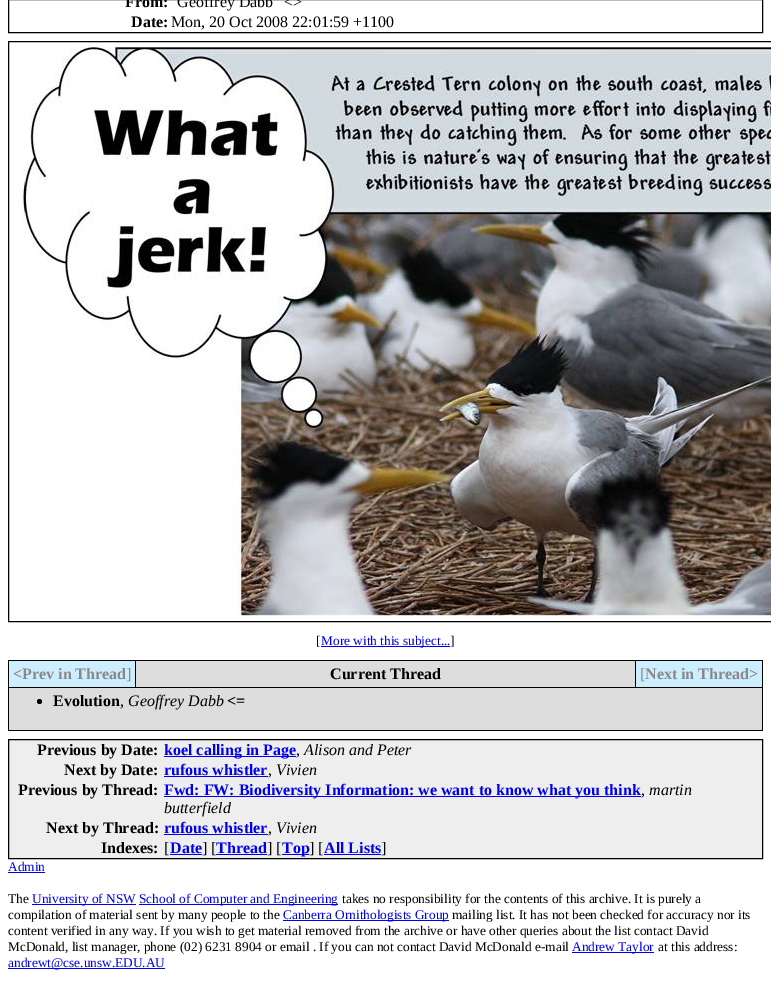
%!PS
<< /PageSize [771 987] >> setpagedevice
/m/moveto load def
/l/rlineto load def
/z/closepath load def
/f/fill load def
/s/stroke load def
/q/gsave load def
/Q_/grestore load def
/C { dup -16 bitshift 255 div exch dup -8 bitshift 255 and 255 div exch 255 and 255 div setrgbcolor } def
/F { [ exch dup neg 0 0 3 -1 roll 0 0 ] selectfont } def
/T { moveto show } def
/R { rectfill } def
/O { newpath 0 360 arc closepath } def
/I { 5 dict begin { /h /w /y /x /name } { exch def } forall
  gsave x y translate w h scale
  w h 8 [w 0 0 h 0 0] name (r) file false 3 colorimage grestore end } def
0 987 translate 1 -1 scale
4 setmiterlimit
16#FFFFFF C
0 0 771 987 R
16#000000 C
8.5 -.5 754 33 rectstroke
/LiberationSerif-Bold 16 F
(From:) 125 7 T
/LiberationSerif-Regular 16 F
(Geoffrey Dabb" <>) 177 7 T
/LiberationSerif-Bold 16 F
(Date:) 131 27 T
/LiberationSerif-Regular 16 F
(Mon, 20 Oct 2008 22:01:59 +1100) 171 27 T
8.5 41.5 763 580 rectstroke
(1.rgb) 22 47 749 569 I
/LiberationSerif-Regular 13.33 F
([) 316 645 T
16#0000EE C
321 646 129 1 R
(More with this subject...) 321 645 T
16#000000 C
(]) 450 645 T
8 660 755 71 R
16#CCEEFF C
9 661 126 26 R
/LiberationSerif-Bold 16 F
16#888888 C
(<Prev in Thread) 13 679 T
/LiberationSerif-Regular 16 F
(]) 126 679 T
16#DDDDDD C
136 661 499 26 R
/LiberationSerif-Bold 16 F
16#000000 C
(Current Thread) 330 679 T
16#CCEEFF C
636 661 126 26 R
/LiberationSerif-Regular 16 F
16#888888 C
([) 640 679 T
/LiberationSerif-Bold 16 F
(Next in Thread>) 645 679 T
16#DDDDDD C
9 688 753 42 R
16#000000 C
39.5 701.5 2.5 O f
(Evolution) 53 706 T
/LiberationSerif-Italic 16 F
(Geoffrey Dabb) 128 706 T
/LiberationSerif-Bold 16 F
(<=) 227 706 T
/LiberationSerif-Regular 16 F
(,) 120 706 T
16#EEEEEE C
8.5 739.5 m 754 0 l 0 119 l -754 0 l z q f Q_
16#000000 C
s
/LiberationSerif-Bold 16 F
(Previous by Date:) 37 755 T
16#0000EE C
164 756 132 1 R
(koel calling in Page) 164 755 T
/LiberationSerif-Regular 16 F
16#000000 C
(,) 296 755 T
/LiberationSerif-Italic 16 F
(Alison and Peter) 304 755 T
/LiberationSerif-Bold 16 F
(Next by Date:) 64 775 T
16#0000EE C
(rufous whistler) 164 775 T
164 776 104 1 R
/LiberationSerif-Regular 16 F
16#000000 C
(,) 268 775 T
/LiberationSerif-Italic 16 F
(Vivien) 276 775 T
/LiberationSerif-Bold 16 F
(Previous by Thread:) 18 795 T
16#0000EE C
164 796 477 1 R
(Fwd: FW: Biodiversity Information: we want to know what you think) 164 795 T
/LiberationSerif-Regular 16 F
16#000000 C
(,) 641 795 T
/LiberationSerif-Italic 16 F
(martin) 649 795 T
(butterfield) 164 813 T
/LiberationSerif-Bold 16 F
(Next by Thread:) 46 833 T
16#0000EE C
(rufous whistler) 164 833 T
164 834 104 1 R
/LiberationSerif-Regular 16 F
16#000000 C
(,) 268 833 T
/LiberationSerif-Italic 16 F
(Vivien) 276 833 T
/LiberationSerif-Bold 16 F
(Indexes:) 101 853 T
/LiberationSerif-Regular 16 F
([) 164 853 T
/LiberationSerif-Bold 16 F
16#0000EE C
(Date) 170 853 T
170 854 32 1 R
/LiberationSerif-Regular 16 F
16#000000 C
(] [) 202 853 T
/LiberationSerif-Bold 16 F
16#0000EE C
(Thread) 216 853 T
216 854 51 1 R
/LiberationSerif-Regular 16 F
16#000000 C
(] [) 267 853 T
16#0000EE C
282 854 27 1 R
/LiberationSerif-Bold 16 F
(Top) 282 853 T
/LiberationSerif-Regular 16 F
16#000000 C
(] [) 309 853 T
/LiberationSerif-Bold 16 F
16#0000EE C
(All Lists) 324 853 T
324 854 57 1 R
/LiberationSerif-Regular 16 F
16#000000 C
(]) 381 853 T
/LiberationSerif-Regular 13.33 F
16#0000EE C
(Admin) 8 871 T
8 872 37 1 R
16#000000 C
(The) 8 903 T
16#0000EE C
32 904 104 1 R
(University of NSW) 32 903 T
139 904 199 1 R
(School of Computer and Engineering) 139 903 T
16#000000 C
(takes no responsibility for the contents of this archive. It is purely a) 342 903 T
(compilation of material sent by many people to the) 8 919 T
16#0000EE C
283 920 166 1 R
(Canberra Ornithologists Group) 283 919 T
16#000000 C
(mailing list. It has not been checked for accuracy nor its) 452 919 T
(content verified in any way. If you wish to get material removed from the archive or have other queries about the list contact David) 8 935 T
(McDonald, list manager, phone \(02\) 6231 8904 or email . If you can not contact David McDonald e-mail) 8 951 T
16#0000EE C
572 952 82 1 R
(Andrew Taylor) 572 951 T
16#000000 C
(at this address:) 658 951 T
16#0000EE C
8 968 157 1 R
(andrewt@cse.unsw.EDU.AU) 8 967 T
showpage
